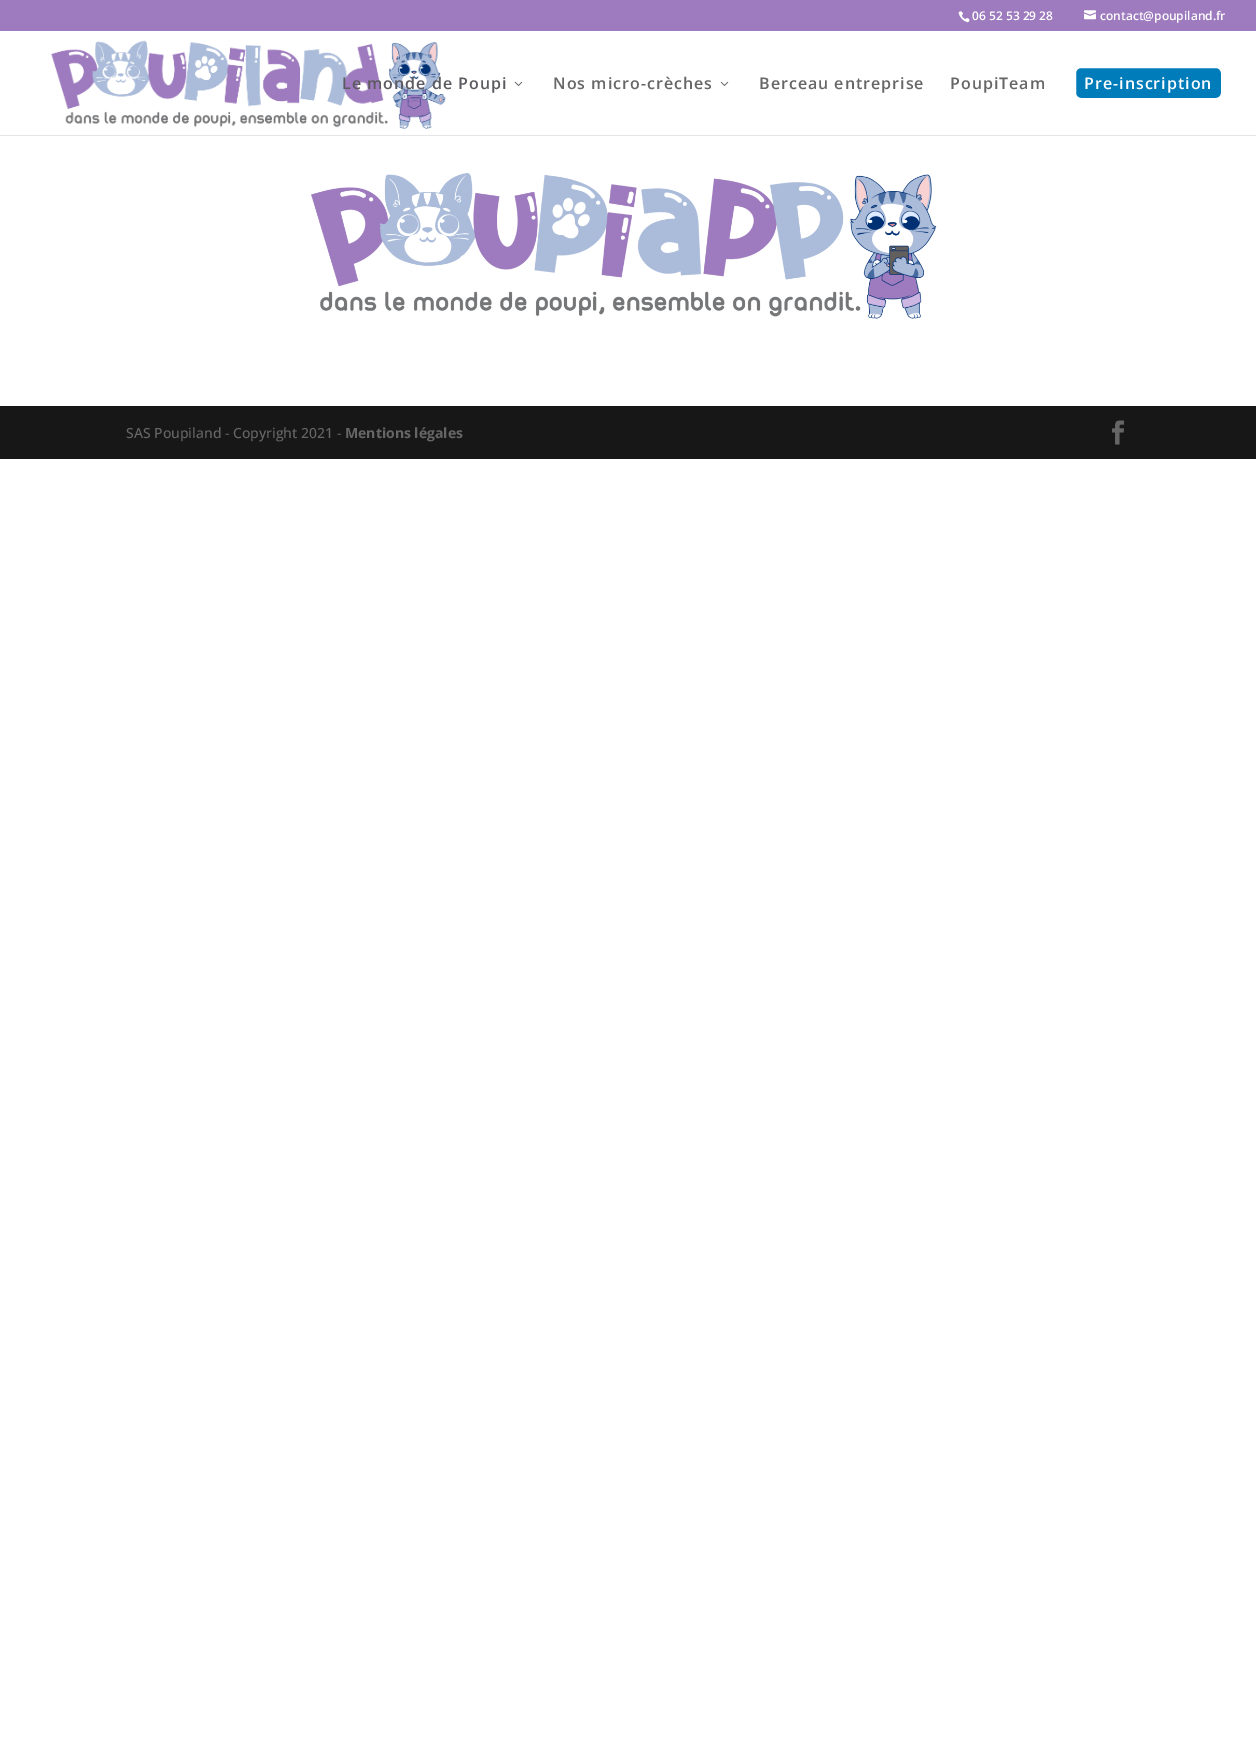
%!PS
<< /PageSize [1256 1743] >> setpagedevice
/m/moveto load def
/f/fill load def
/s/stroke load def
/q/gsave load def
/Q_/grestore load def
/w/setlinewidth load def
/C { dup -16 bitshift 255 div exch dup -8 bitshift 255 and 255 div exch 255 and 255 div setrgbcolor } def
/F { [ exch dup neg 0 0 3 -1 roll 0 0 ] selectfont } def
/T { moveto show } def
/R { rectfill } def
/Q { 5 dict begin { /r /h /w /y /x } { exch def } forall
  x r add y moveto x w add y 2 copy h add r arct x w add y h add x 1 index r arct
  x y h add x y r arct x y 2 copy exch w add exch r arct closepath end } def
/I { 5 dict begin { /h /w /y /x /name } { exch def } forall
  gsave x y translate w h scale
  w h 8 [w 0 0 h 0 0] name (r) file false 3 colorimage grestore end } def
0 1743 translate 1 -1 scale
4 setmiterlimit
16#FFFFFF C
0 0 1256 1743 R
16#9E7BBE C
0 0 1256 31 R
(1.rgb) 958 11 12 12 I
/OpenSans-SemiBold 12 F
16#FFFFFF C
(06 52 53 29 28) 972 20 T
(2.rgb) 1084 10 12 10 I
(contact@poupiland.fr) 1100 20 T
16#E6E6E6 C
0 135 1256 1 R
(3.rgb) 51 40 395 89 I
/OpenSans-SemiBold 16 F
16#5B5A60 C
342 89 m 1 0 (Le monde de Poupi) ashow
(4.rgb) 514 81 9 5 I
16#666666 C
553 89 m 1 0 (Nos micro-crèches) ashow
(4.rgb) 720 81 9 5 I
759 89 m 1 0 (Berceau entreprise) ashow
950 89 m 1 0 (PoupiTeam) ashow
16#007CBA C
1073.5 65.5 150 35 7.5 Q q f Q_
16#FFFFFF C
5 w
s
1084 89 m 1 0 (Pre-inscription) ashow
(5.rgb) 311 173 626 146 I
16#171717 C
0 406 1256 53 R
/OpenSans-Medium 14 F
16#666666 C
(SAS Poupiland - Copyright 2021 -) 126 438 T
/OpenSans-Bold 14 F
(Mentions légales) 345 438 T
(6.rgb) 1112 420 12 25 I
showpage
